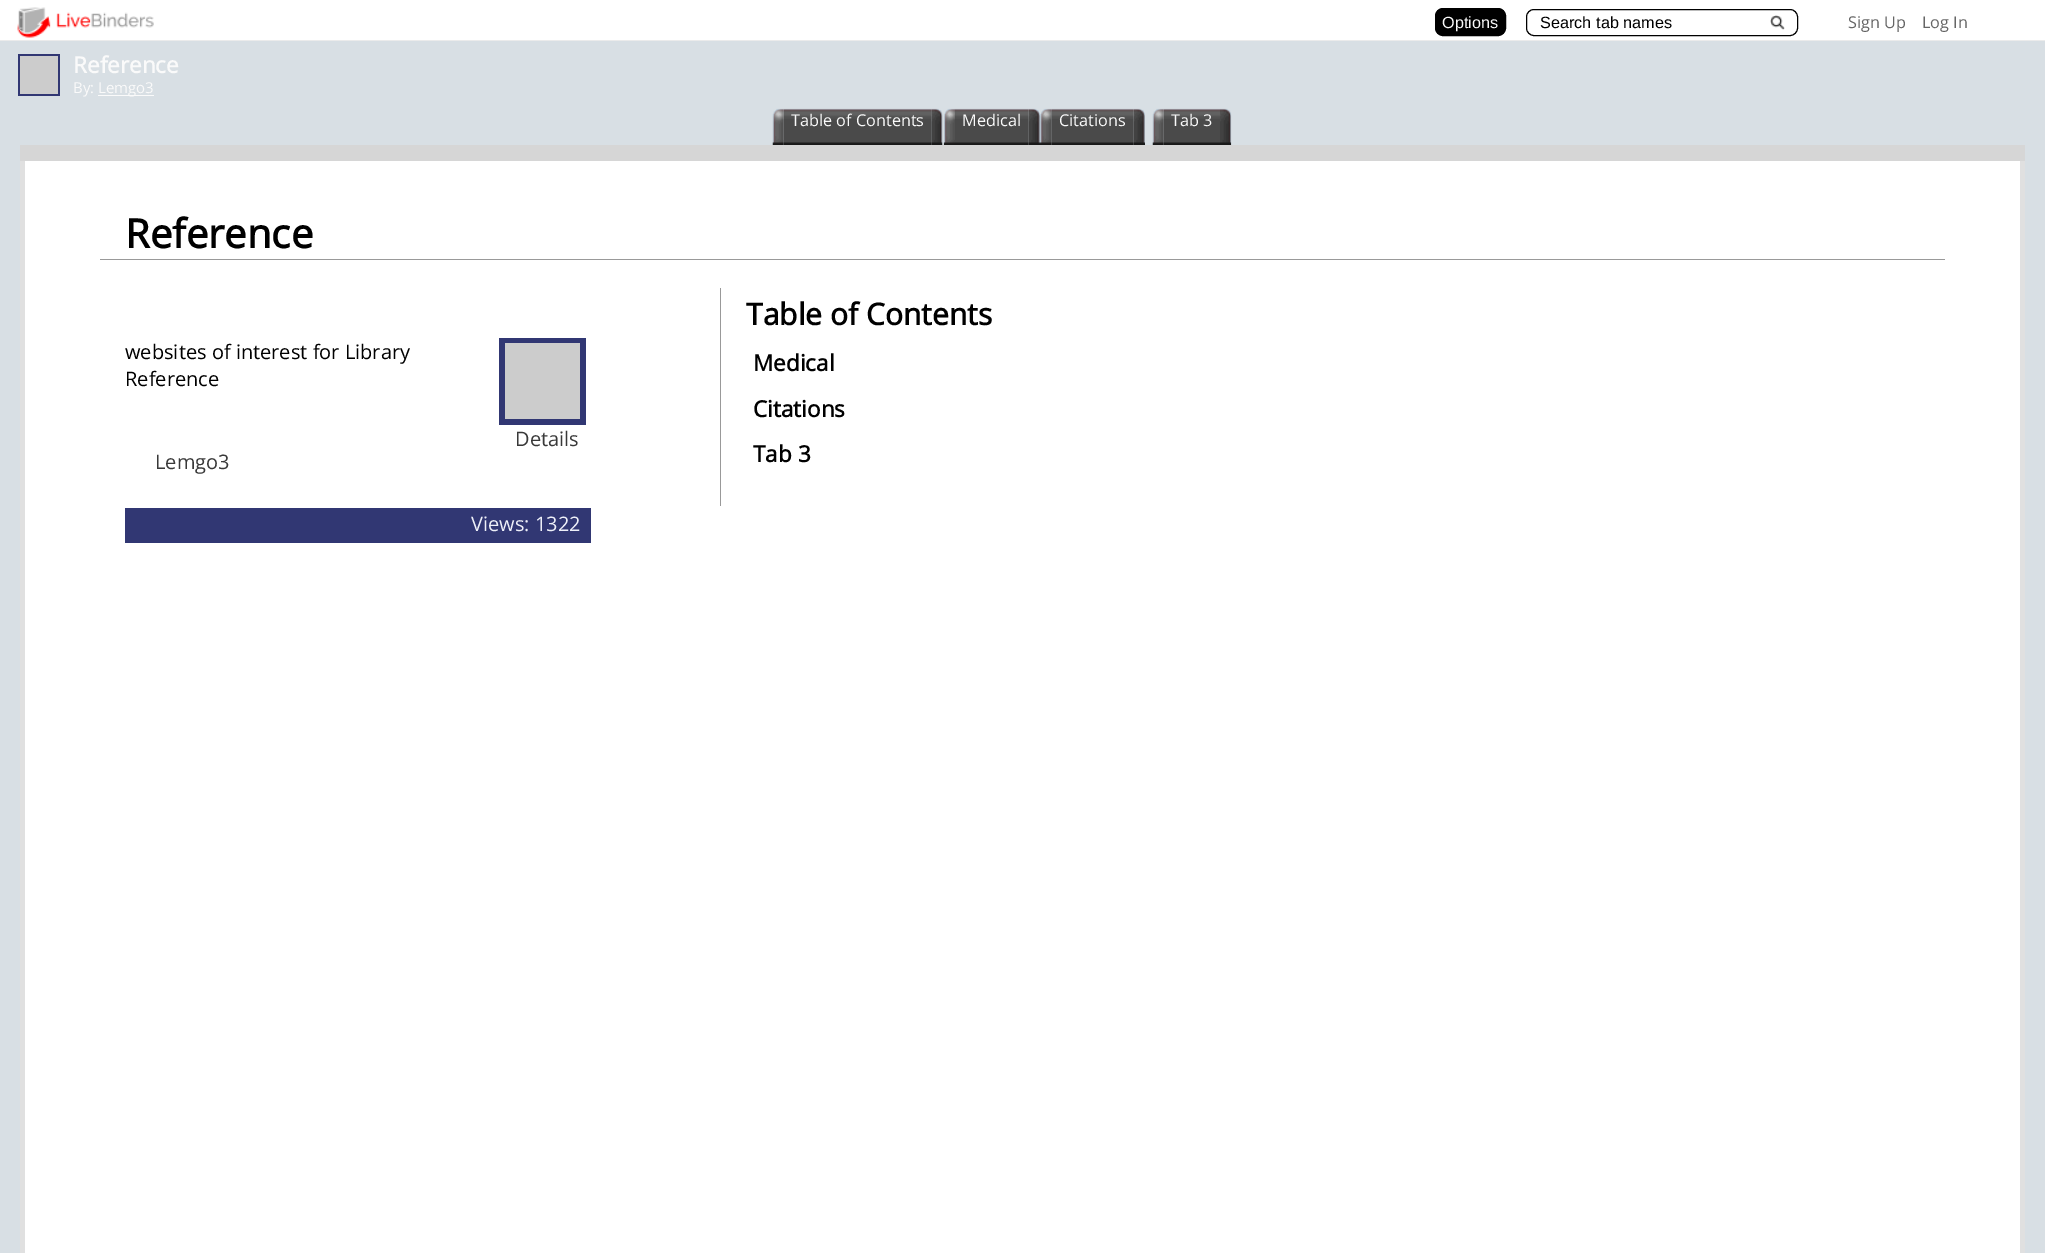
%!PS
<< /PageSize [2045 1253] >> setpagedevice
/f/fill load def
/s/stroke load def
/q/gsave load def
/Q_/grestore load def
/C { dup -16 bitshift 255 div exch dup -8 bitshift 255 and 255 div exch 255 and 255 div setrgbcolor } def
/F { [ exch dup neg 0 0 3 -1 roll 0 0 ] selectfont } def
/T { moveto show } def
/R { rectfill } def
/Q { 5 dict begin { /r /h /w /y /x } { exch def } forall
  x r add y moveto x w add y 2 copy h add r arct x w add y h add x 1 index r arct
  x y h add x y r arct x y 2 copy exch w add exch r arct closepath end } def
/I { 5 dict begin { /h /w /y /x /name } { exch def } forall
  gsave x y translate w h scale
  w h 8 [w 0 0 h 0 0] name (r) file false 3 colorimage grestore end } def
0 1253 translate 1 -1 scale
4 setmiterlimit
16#D8DFE4 C
0 0 2045 1253 R
16#FFFFFF C
0 0 2045 40 R
16#EBEBEB C
0 40 2045 1 R
(1.rgb) 17 7 137 31 I
16#000000 C
1435.5 8.5 70 27 7.5 Q q f Q_
s
/LiberationSans-Regular 16.25 F
16#FAFAFA C
(Options) 1442 28 T
(2.rgb) 1770 15 15 15 I
16#000000 C
1526.5 9.5 271 26 7.5 Q s
(Search tab names) 1540 28 T
/OpenSans-Regular 16.25 F
16#666666 C
(Sign Up) 1848 28 T
(Log In) 1922 28 T
16#313773 C
18 54 42 42 R
16#CCCCCC C
20 56 38 38 R
/OpenSans-Bold 22.5 F
16#FAFAFA C
(Reference) 73 73 T
/OpenSans-Regular 15 F
(By:) 73 93 T
98 95 56 1 R
(Lemgo3) 98 93 T
16#D6D6D6 C
20 145 2005 16 R
(3.rgb) 772 108 12 37 I
(4.rgb) 783 108 149 37 I
/OpenSans-Regular 16.25 F
16#FAFAFA C
(Table of Contents) 791 126 T
(5.rgb) 931 108 12 37 I
(6.rgb) 943 108 12 37 I
(7.rgb) 955 108 74 37 I
(Medical) 962 126 T
(8.rgb) 1028 108 12 37 I
(9.rgb) 1040 108 12 37 I
(10.rgb) 1051 108 83 37 I
(Citations) 1059 126 T
(11.rgb) 1133 108 12 37 I
(3.rgb) 1152 108 12 37 I
(12.rgb) 1163 108 57 37 I
(Tab 3) 1171 126 T
(13.rgb) 1220 108 12 37 I
16#FFFFFF C
25 161 1995 1092 R
16#E0E0E0 C
2020 161 5 1092 R
20 161 5 1092 R
16#999999 C
100 259 1845 1 R
/OpenSans-Bold 40 F
16#000000 C
(Reference) 125 248 T
16#999999 C
720 288 1 218 R
/OpenSans-Bold 30 F
16#000000 C
(Table of Contents) 746 325 T
/OpenSans-Regular 20 F
(websites of interest for Library) 125 359 T
(Reference) 125 386 T
16#313773 C
499 338 87 87 R
16#CCCCCC C
505 343 75 76 R
16#393939 C
(Details) 515 446 T
(Lemgo3) 155 469 T
16#313773 C
125 508 466 35 R
16#EDEFF8 C
(Views: 1322) 471 531 T
/OpenSans-Bold 22.5 F
16#000000 C
(Medical) 753 371 T
(Citations) 753 417 T
(Tab 3) 753 462 T
showpage
